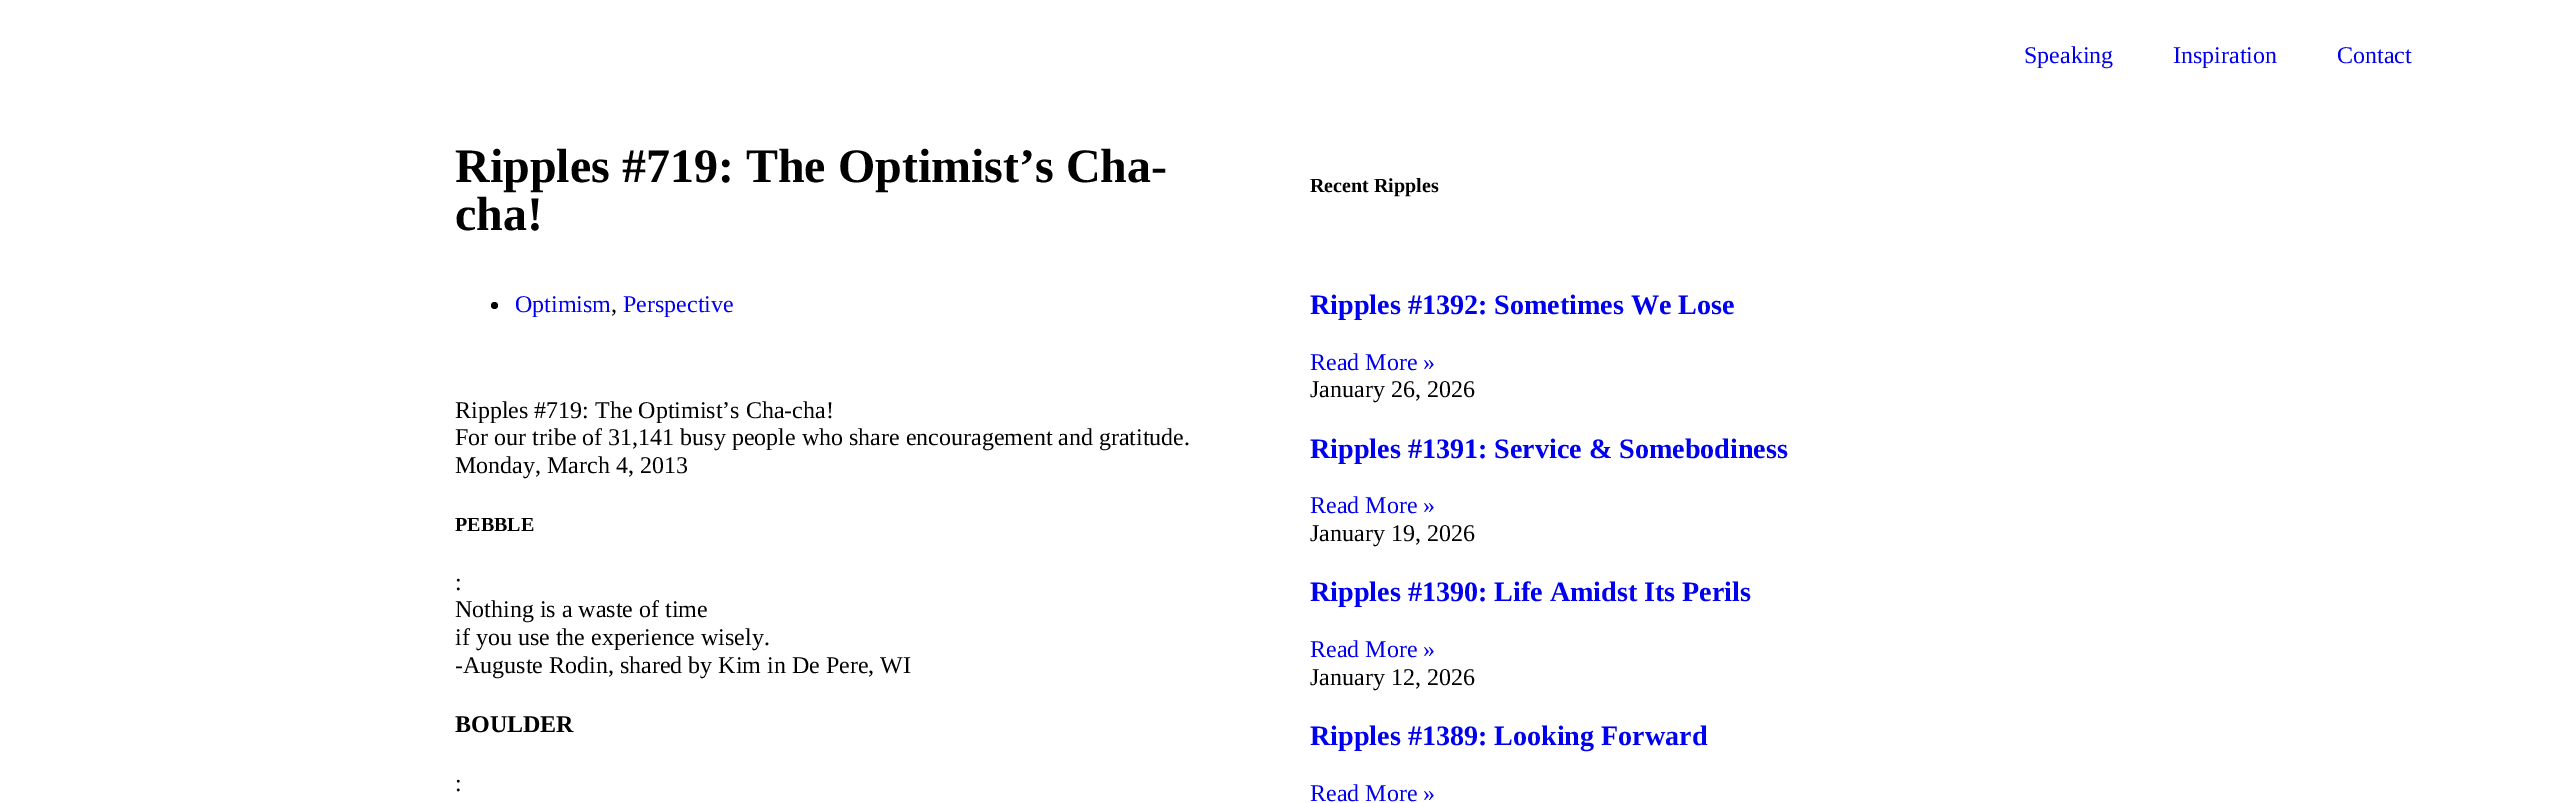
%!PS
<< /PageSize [2558 803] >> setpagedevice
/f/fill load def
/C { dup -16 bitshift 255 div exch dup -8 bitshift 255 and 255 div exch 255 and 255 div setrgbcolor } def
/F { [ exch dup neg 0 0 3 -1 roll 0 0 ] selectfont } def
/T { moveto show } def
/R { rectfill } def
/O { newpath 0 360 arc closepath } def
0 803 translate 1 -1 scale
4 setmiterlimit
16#FFFFFF C
0 0 2558 803 R
/LiberationSerif-Regular 24 F
16#0000EE C
(Speaking) 2024 63 T
(Inspiration) 2173 63 T
(Contact) 2337 63 T
/LiberationSerif-Bold 48 F
16#000000 C
(Ripples #719: The Optimist’s Cha-) 455 182 T
(cha!) 455 230 T
494.5 305.5 3.5 O f
/LiberationSerif-Regular 24 F
16#0000EE C
(Optimism) 515 312 T
(Perspective) 623 312 T
16#000000 C
(,) 611 312 T
(Ripples #719: The Optimist’s Cha-cha!) 455 418 T
(For our tribe of 31,141 busy people who share encouragement and gratitude.) 455 445 T
(Monday, March 4, 2013) 455 473 T
/LiberationSerif-Bold 20 F
(PEBBLE) 455 531 T
/LiberationSerif-Regular 24 F
(:) 455 590 T
(Nothing is a waste of time) 455 617 T
(if you use the experience wisely.) 455 645 T
(-Auguste Rodin, shared by Kim in De Pere, WI) 455 673 T
/LiberationSerif-Bold 24 F
(BOULDER) 455 732 T
/LiberationSerif-Regular 24 F
(:) 455 791 T
/LiberationSerif-Bold 20 F
(Recent Ripples) 1310 192 T
/LiberationSerif-Bold 28.1 F
16#0000EE C
(Ripples #1392: Sometimes We Lose) 1310 314 T
/LiberationSerif-Regular 24 F
(Read More ») 1310 370 T
16#000000 C
(January 26, 2026) 1310 397 T
/LiberationSerif-Bold 28.1 F
16#0000EE C
(Ripples #1391: Service & Somebodiness) 1310 458 T
/LiberationSerif-Regular 24 F
(Read More ») 1310 513 T
16#000000 C
(January 19, 2026) 1310 541 T
/LiberationSerif-Bold 28.1 F
16#0000EE C
(Ripples #1390: Life Amidst Its Perils) 1310 601 T
/LiberationSerif-Regular 24 F
(Read More ») 1310 657 T
16#000000 C
(January 12, 2026) 1310 685 T
/LiberationSerif-Bold 28.1 F
16#0000EE C
(Ripples #1389: Looking Forward) 1310 745 T
/LiberationSerif-Regular 24 F
(Read More ») 1310 801 T
showpage
